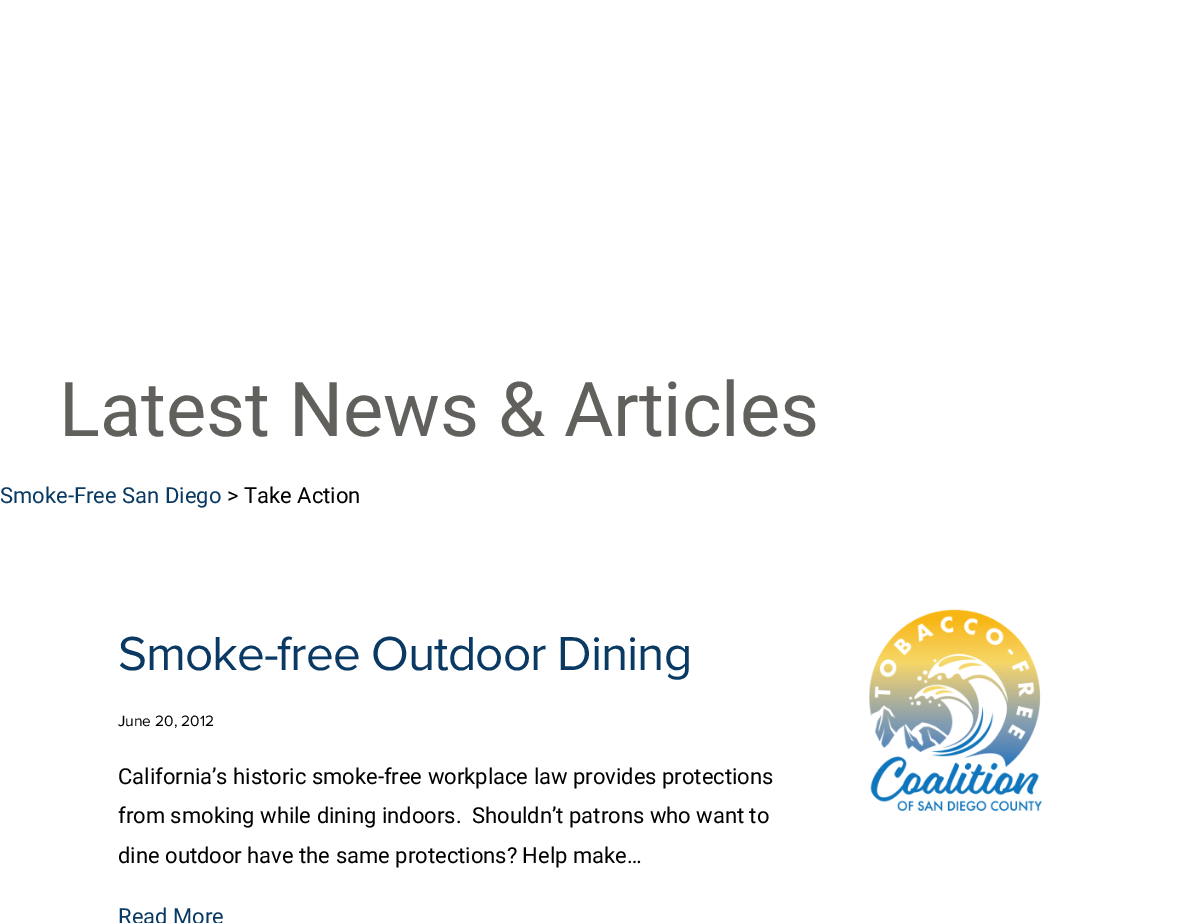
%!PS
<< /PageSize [1181 923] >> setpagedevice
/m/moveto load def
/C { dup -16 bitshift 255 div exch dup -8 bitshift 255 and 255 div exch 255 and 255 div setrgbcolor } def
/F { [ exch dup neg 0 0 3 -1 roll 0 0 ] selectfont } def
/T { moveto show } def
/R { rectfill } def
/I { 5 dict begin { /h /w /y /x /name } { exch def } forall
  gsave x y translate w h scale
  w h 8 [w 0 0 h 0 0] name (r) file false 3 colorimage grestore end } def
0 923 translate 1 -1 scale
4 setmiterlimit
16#FFFFFF C
0 0 1181 923 R
/Roboto-Regular 75.75 F
16#61605D C
(Latest News & Articles) 59 436 T
/Roboto-Regular 22 F
16#0A3A63 C
(Smoke-Free San Diego) 0 503 T
16#000000 C
(> Take Action) 227 503 T
/ProximaNova-Regular 49.5 F
16#0A3A63 C
118 670 m -1 0 (Smoke-free Outdoor Dining) ashow
/ProximaNova-Regular 15.5 F
16#000000 C
(June 20, 2012) 118 726 T
/Roboto-Regular 22 F
(California’s historic smoke-free workplace law provides protections) 118 784 T
(from smoking while dining indoors.  Shouldn’t patrons who want to) 118 823 T
(dine outdoor have the same protections? Help make…) 118 863 T
16#0A3A63 C
(Read More) 118 924 T
(1.rgb) 869 609 173 203 I
showpage
